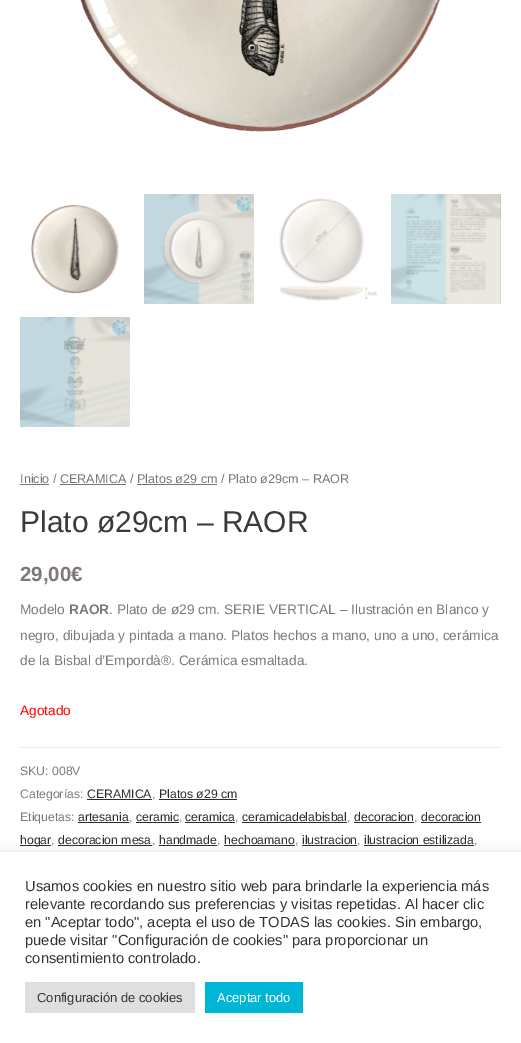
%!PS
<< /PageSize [521 1043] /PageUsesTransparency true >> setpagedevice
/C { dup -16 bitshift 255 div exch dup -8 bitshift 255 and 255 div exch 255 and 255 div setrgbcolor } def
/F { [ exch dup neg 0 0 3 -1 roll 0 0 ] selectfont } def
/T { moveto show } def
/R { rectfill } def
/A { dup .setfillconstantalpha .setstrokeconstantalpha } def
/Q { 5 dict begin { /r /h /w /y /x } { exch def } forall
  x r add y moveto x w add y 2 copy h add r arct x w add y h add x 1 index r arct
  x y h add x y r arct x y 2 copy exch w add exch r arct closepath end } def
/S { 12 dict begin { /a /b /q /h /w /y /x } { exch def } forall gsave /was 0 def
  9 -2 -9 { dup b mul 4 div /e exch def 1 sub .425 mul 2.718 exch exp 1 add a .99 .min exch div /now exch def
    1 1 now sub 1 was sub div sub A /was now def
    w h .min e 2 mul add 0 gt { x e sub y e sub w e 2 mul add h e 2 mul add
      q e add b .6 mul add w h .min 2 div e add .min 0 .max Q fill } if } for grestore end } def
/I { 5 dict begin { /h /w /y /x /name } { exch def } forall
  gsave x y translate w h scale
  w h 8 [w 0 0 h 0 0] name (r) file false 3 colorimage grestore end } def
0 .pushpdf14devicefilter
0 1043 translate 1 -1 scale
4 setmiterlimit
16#FFFFFF C
0 0 521 1043 R
(1.rgb) 80 0 361 132 I
(2.rgb) 31 205 88 89 I
(3.rgb) 144 194 110 110 I
(4.rgb) 279 198 98 103 I
(5.rgb) 391 194 110 110 I
(6.rgb) 20 317 110 110 I
/LiberationSans-Regular 12.6 F
16#777777 C
(Inicio / CERAMICA / Platos ø29 cm / Plato ø29cm – RAOR) 20 483 T
20 484 29 1 R
60 484 66 1 R
137 484 80 1 R
/LiberationSans-Regular 30 F
16#3A3A3A C
(Plato ø29cm – RAOR) 20 532 T
/LiberationSans-Bold 20.5 F
16#807777 C
(29,00€) 20 581 T
/LiberationSans-Regular 13.7 F
(Modelo) 20 614 T
/LiberationSans-Bold 13.7 F
(RAOR) 69 614 T
/LiberationSans-Regular 13.7 F
(. Plato de ø29 cm. SERIE VERTICAL – Ilustración en Blanco y) 109 614 T
(negro, dibujada y pintada a mano. Platos hechos a mano, uno a uno, cerámica) 20 640 T
(de la Bisbal d’Empordà®. Cerámica esmaltada.) 20 665 T
16#FF0000 C
(Agotado) 20 715 T
16#EBEBEB C
20 747 481 1 R
/LiberationSans-Regular 12.25 F
16#807777 C
(SKU: 008V) 20 775 T
(Categorías:) 20 798 T
16#2B2B2B C
(CERAMICA) 87 798 T
87 799 65 1 R
16#807777 C
(,) 152 798 T
16#2B2B2B C
(Platos ø29 cm) 159 798 T
159 799 78 1 R
16#807777 C
(Etiquetas:) 20 821 T
16#2B2B2B C
(artesania) 78 821 T
78 822 51 1 R
16#807777 C
(,) 129 821 T
16#2B2B2B C
(ceramic) 136 821 T
136 822 43 1 R
16#807777 C
(,) 179 821 T
16#2B2B2B C
(ceramica) 185 821 T
185 822 50 1 R
16#807777 C
(,) 235 821 T
16#2B2B2B C
(ceramicadelabisbal) 242 821 T
242 822 105 1 R
16#807777 C
(,) 347 821 T
16#2B2B2B C
(decoracion) 354 821 T
354 822 60 1 R
16#807777 C
(,) 414 821 T
16#2B2B2B C
(decoracion) 421 821 T
421 822 60 1 R
20 845 31 1 R
(hogar) 20 844 T
16#807777 C
(,) 51 844 T
16#2B2B2B C
(decoracion mesa) 58 844 T
58 845 94 1 R
16#807777 C
(,) 152 844 T
16#2B2B2B C
(handmade) 159 844 T
159 845 58 1 R
16#807777 C
(,) 217 844 T
16#2B2B2B C
(hechoamano) 224 844 T
224 845 71 1 R
16#807777 C
(,) 295 844 T
16#2B2B2B C
(ilustracion) 302 844 T
302 845 55 1 R
16#807777 C
(,) 357 844 T
16#2B2B2B C
(ilustracion estilizada) 364 844 T
364 845 110 1 R
16#807777 C
(,) 474 844 T
16#ACABAB C
0 851 521 191 0 5 .3 S
16#FFFFFF C
0 852 521 191 R
/LiberationSans-Regular 14.7 F
16#333333 C
(Usamos cookies en nuestro sitio web para brindarle la experiencia más) 25 891 T
(relevante recordando sus preferencias y visitas repetidas. Al hacer clic) 25 909 T
(en "Aceptar todo", acepta el uso de TODAS las cookies. Sin embargo,) 25 927 T
(puede visitar "Configuración de cookies" para proporcionar un) 25 945 T
(consentimiento controlado.) 25 963 T
16#DEDFE0 C
25 982 170 31 R
/LiberationSans-Regular 13 F
16#333333 C
(Configuración de cookies) 37 1002 T
16#00B6D6 C
205 982 98 31 R
16#FFFFFF C
(Aceptar todo) 217 1002 T
.poppdf14devicefilter showpage
